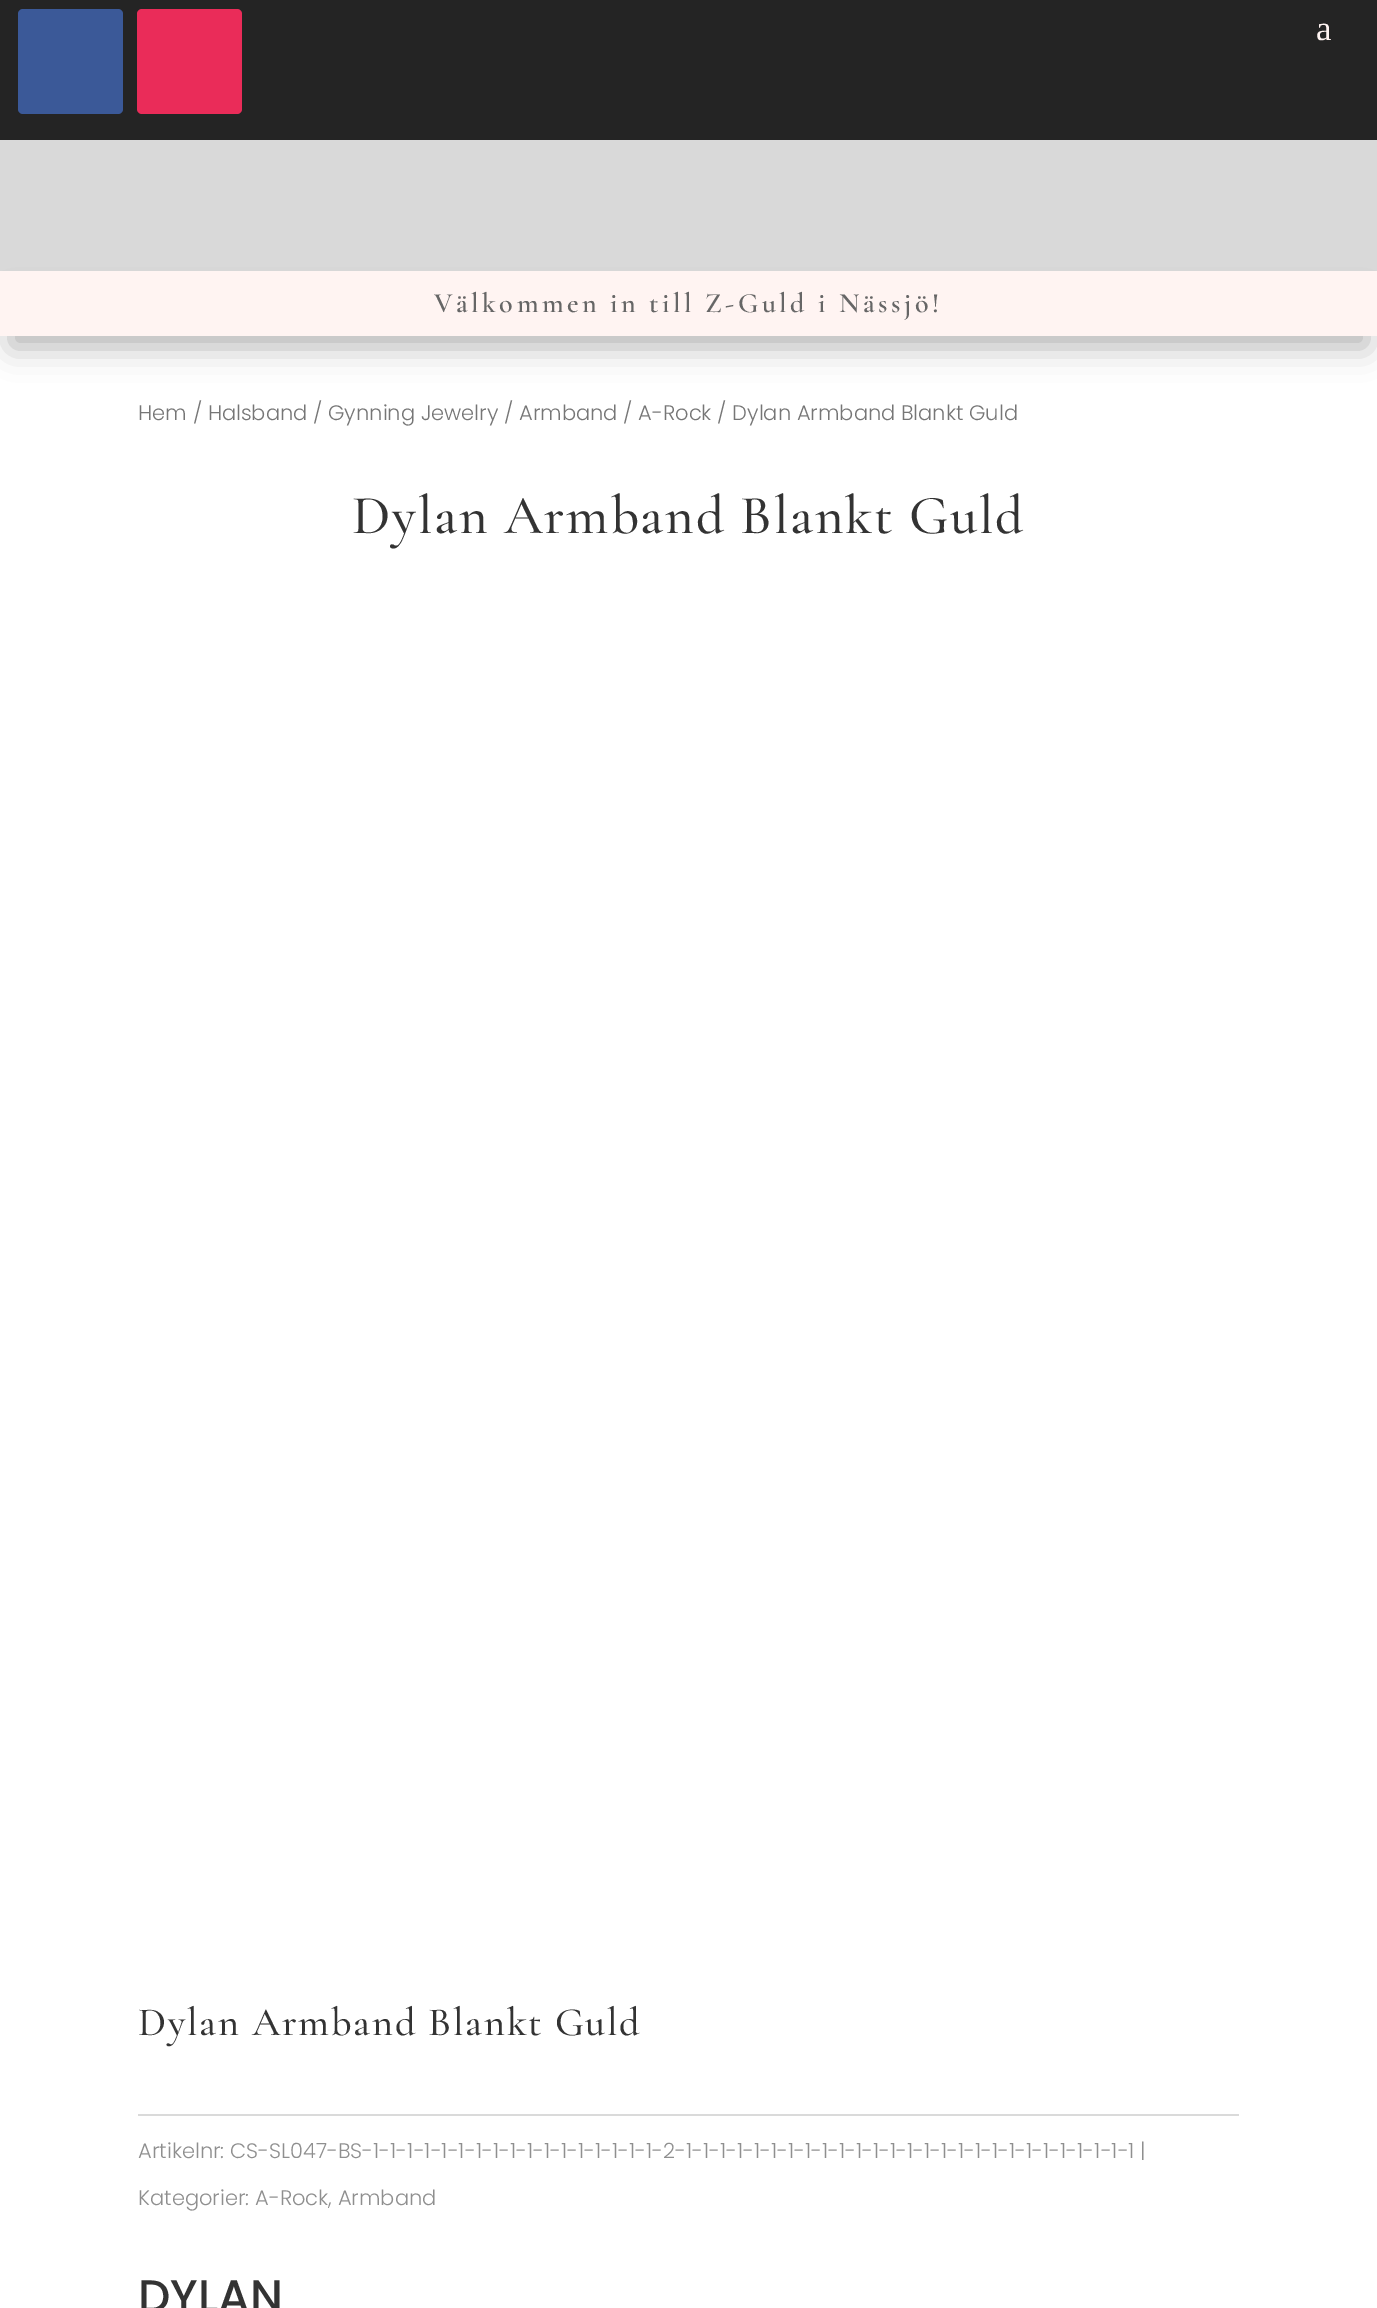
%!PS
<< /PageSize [1377 2308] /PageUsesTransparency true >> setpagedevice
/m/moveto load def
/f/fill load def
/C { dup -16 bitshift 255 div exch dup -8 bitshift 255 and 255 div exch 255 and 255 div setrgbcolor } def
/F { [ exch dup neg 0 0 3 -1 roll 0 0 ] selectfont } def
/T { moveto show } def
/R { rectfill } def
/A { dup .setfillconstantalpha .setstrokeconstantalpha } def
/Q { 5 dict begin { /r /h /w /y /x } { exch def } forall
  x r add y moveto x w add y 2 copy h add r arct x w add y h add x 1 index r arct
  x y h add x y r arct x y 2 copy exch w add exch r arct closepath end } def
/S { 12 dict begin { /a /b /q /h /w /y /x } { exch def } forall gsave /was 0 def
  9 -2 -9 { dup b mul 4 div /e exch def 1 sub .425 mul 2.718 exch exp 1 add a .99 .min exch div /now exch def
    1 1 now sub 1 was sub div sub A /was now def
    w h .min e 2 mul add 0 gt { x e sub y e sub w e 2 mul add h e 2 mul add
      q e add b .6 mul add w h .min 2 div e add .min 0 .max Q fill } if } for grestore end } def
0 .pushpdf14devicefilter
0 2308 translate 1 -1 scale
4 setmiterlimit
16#FFFFFF C
0 0 1377 2308 R
16#242424 C
0 0 1377 140 R
16#3B5998 C
18 9 105 105 5 Q f
16#EA2C59 C
137 9 105 105 5 Q f
/LiberationSerif-Regular 35 F
16#FFF4F2 C
(a) 1316 40 T
16#D9D9D9 C
0 140 1377 131 R
16#000000 C
11 303 1356 44 0 16 .3 S
16#FFF4F2 C
0 271 1377 65 R
/CormorantGaramond-SemiBold 28 F
16#666666 C
434 312 m 3.5 0 (Välkommen in till Z-Guld i Nässjö!) ashow
/Poppins-Light 21 F
16#767676 C
(Hem / Halsband / Gynning Jewelry / Armband / A-Rock / Dylan Armband Blankt Guld) 138 420 T
/CormorantGaramond-Medium 55.1 F
16#333333 C
352 533 m 1.75 0 (Dylan Armband Blankt Guld) ashow
/CormorantGaramond-Medium 40.25 F
138 2035 m 1.75 0 (Dylan Armband Blankt Guld) ashow
16#DADADA C
138 2114 1101 2 R
/Poppins-Light 21 F
16#8F8F8F C
(Artikelnr: CS-SL047-BS-1-1-1-1-1-1-1-1-1-1-1-1-1-1-1-1-1-2-1-1-1-1-1-1-1-1-1-1-1-1-1-1-1-1-1-1-1-1-1-1-1-1-1-1-1 |) 138 2158 T
(Kategorier: A-Rock, Armband) 138 2205 T
/Poppins-Medium 45.5 F
16#333333 C
(DYLAN) 138 2312 T
.poppdf14devicefilter showpage
